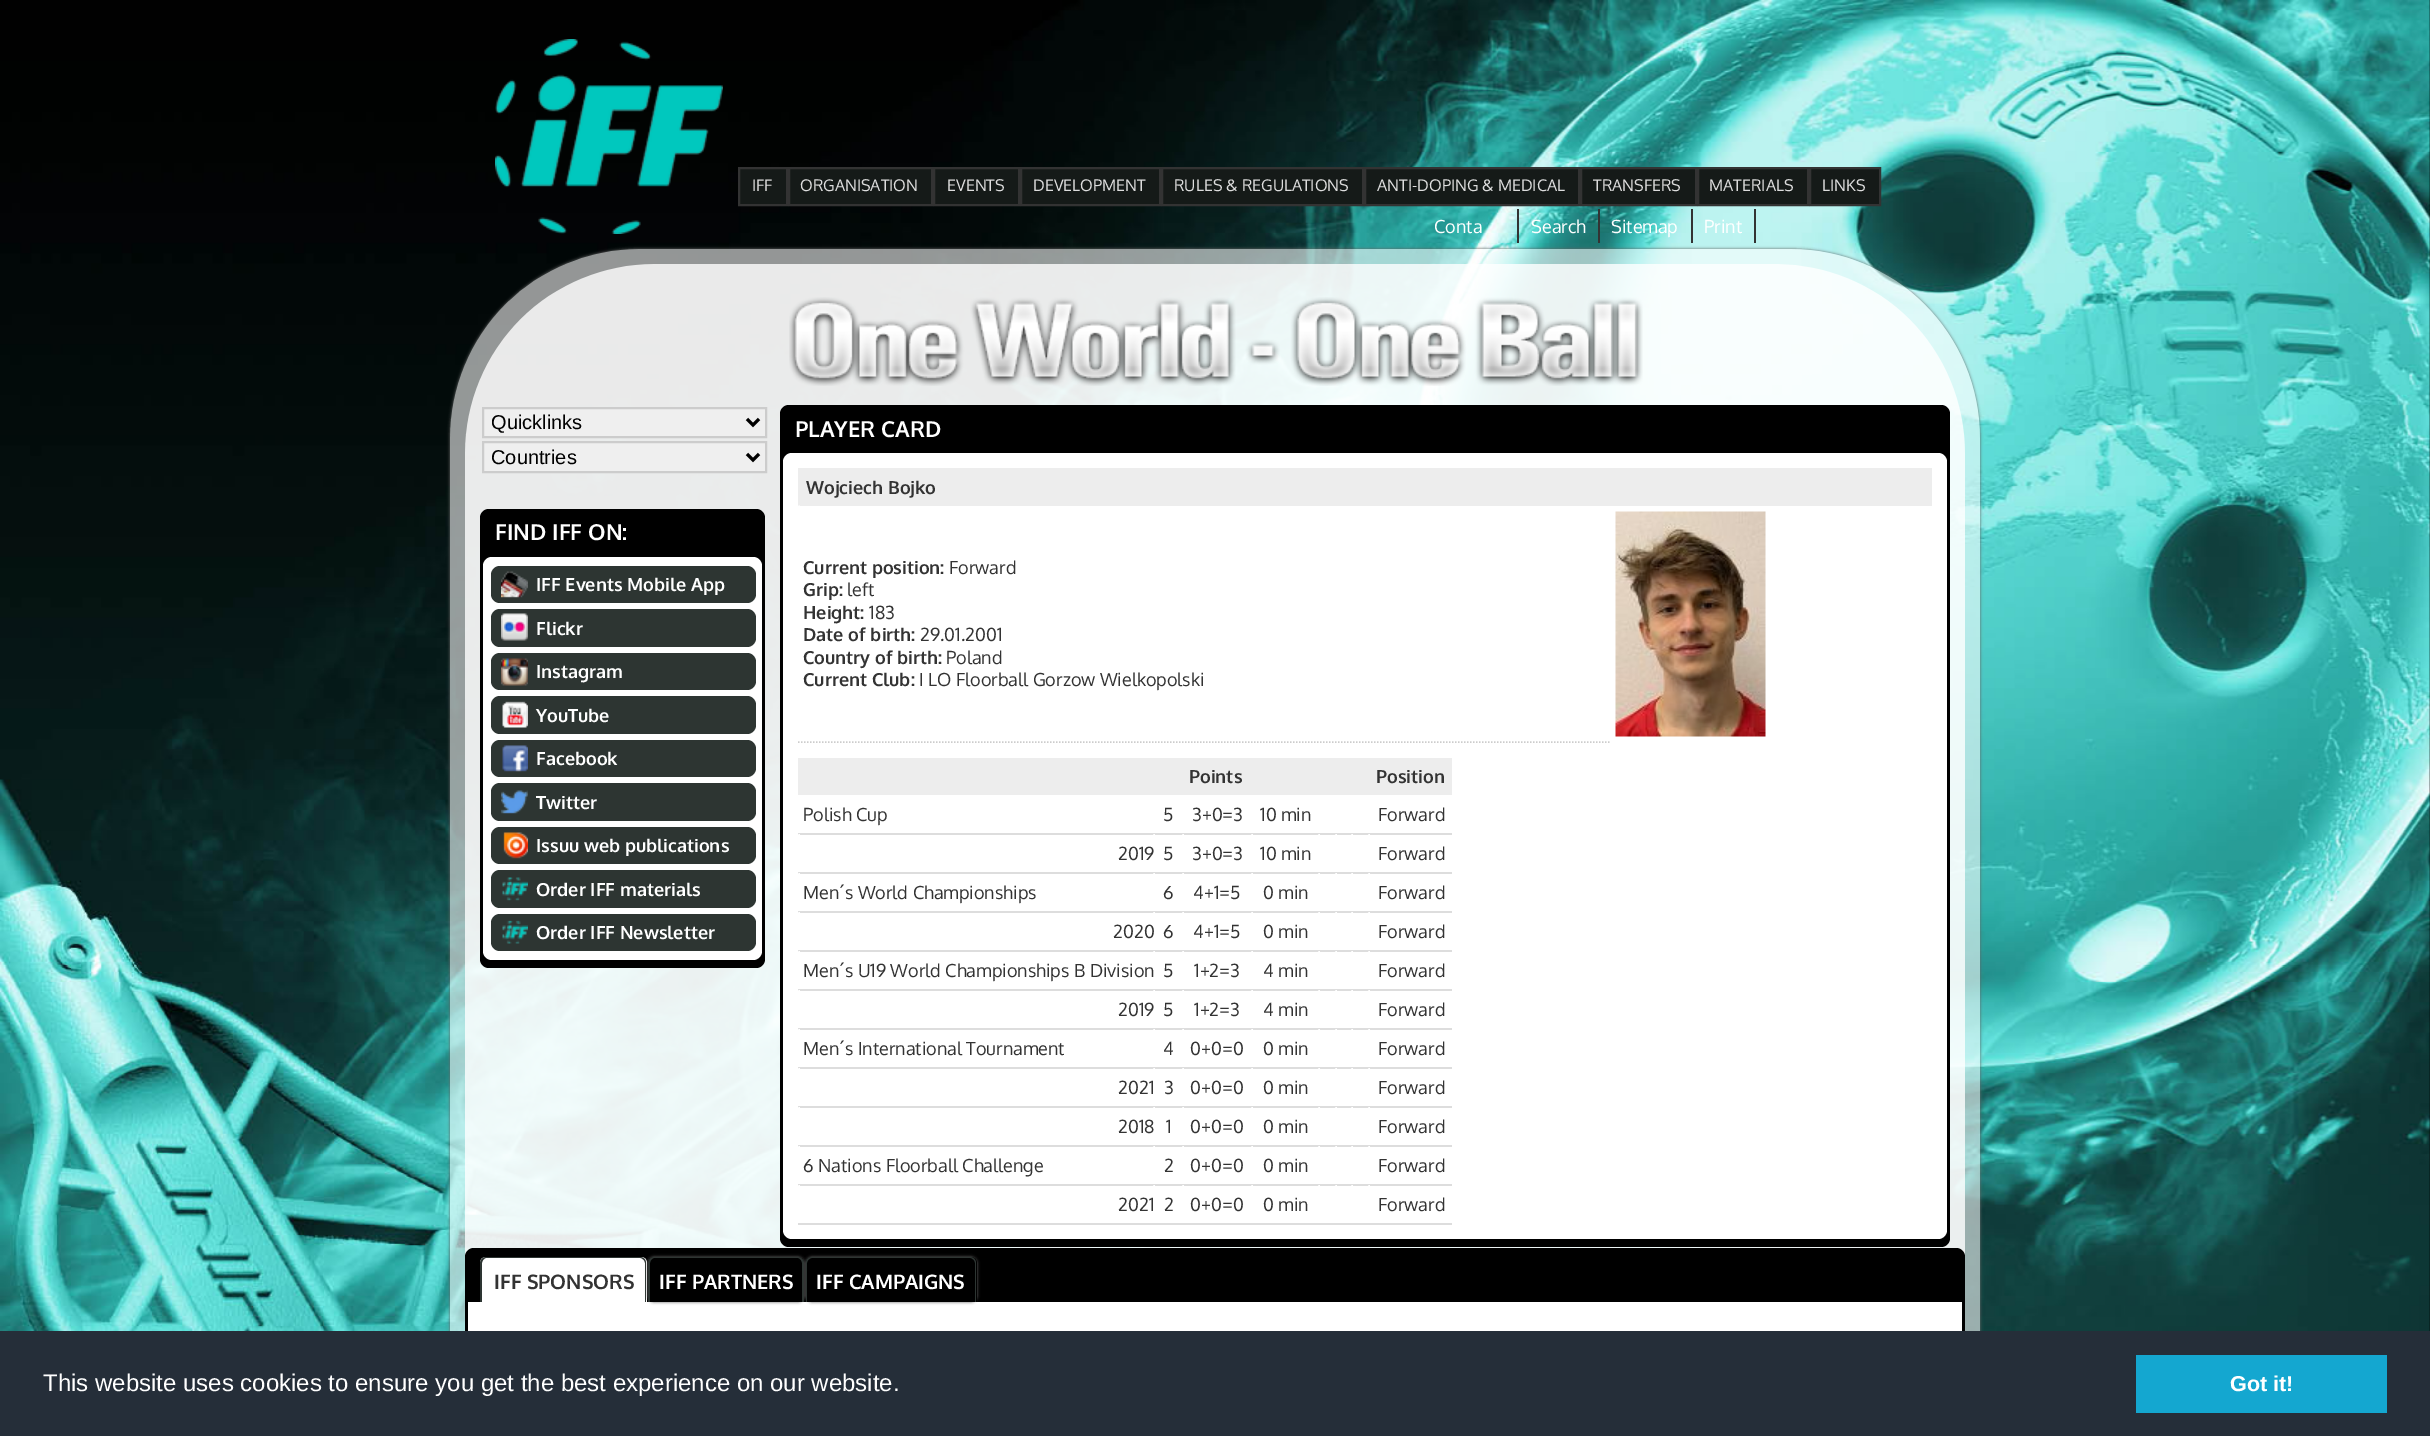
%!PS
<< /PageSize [2430 1436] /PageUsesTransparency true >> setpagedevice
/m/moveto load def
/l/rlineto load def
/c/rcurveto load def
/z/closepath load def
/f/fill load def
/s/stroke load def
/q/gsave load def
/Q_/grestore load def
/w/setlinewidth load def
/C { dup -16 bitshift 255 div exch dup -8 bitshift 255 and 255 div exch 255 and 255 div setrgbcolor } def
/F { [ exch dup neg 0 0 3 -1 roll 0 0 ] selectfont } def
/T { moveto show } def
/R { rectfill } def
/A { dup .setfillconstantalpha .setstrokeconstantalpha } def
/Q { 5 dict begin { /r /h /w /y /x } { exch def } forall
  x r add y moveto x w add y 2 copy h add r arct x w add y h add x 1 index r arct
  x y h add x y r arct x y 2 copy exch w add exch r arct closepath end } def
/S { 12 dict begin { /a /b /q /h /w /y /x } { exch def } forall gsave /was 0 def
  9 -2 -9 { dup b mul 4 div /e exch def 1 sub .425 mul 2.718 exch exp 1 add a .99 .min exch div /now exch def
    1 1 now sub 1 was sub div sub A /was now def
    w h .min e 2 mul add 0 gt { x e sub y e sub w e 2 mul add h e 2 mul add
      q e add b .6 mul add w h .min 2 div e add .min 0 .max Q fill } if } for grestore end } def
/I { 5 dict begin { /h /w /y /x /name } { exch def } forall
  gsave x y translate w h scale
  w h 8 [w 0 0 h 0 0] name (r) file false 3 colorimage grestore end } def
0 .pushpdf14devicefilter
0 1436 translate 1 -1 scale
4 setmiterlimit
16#FFFFFF C
0 0 2430 1436 R
(1.rgb) 0 0 2430 1331 I
(2.rgb) 495 39 228 195 I
16#151A18 C
739 168 m 48 0 l 0 37 l -48 0 l z q f Q_
16#333333 C
2 w
s
/Oxygen-Regular 16 F
16#DDDDDD C
(IFF) 752 191 T
16#151A18 C
789 168 m 143 0 l 0 37 l -143 0 l z q f Q_
16#333333 C
s
16#DDDDDD C
(ORGANISATION) 800 191 T
16#151A18 C
934 168 m 85 0 l 0 37 l -85 0 l z q f Q_
16#333333 C
s
16#DDDDDD C
(EVENTS) 947 191 T
16#151A18 C
1021 168 m 139 0 l 0 37 l -139 0 l z q f Q_
16#333333 C
s
16#DDDDDD C
(DEVELOPMENT) 1033 191 T
16#151A18 C
1162 168 m 201 0 l 0 37 l -201 0 l z q f Q_
16#333333 C
s
16#DDDDDD C
(RULES & REGULATIONS) 1174 191 T
16#151A18 C
1365 168 m 214 0 l 0 37 l -214 0 l z q f Q_
16#333333 C
s
16#DDDDDD C
(ANTI-DOPING & MEDICAL) 1377 191 T
16#151A18 C
1581 168 m 115 0 l 0 37 l -115 0 l z q f Q_
16#333333 C
s
16#DDDDDD C
(TRANSFERS) 1593 191 T
16#151A18 C
1698 168 m 110 0 l 0 37 l -110 0 l z q f Q_
16#333333 C
s
16#DDDDDD C
(MATERIALS) 1709 191 T
16#151A18 C
1810 168 m 70 0 l 0 37 l -70 0 l z q f Q_
16#333333 C
s
16#DDDDDD C
(LINKS) 1822 191 T
/Oxygen-Regular 18 F
16#FFFFFF C
(Conta) 1434 233 T
16#333333 C
1517 209 2 34 R
16#FFFFFF C
(Search) 1531 233 T
16#333333 C
1598 209 2 34 R
16#FFFFFF C
(Sitemap) 1611 233 T
16#333333 C
1691 209 2 34 R
16#FFFFFF C
(Print) 1704 233 T
16#333333 C
1754 209 2 34 R
q
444 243 m 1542 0 l 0 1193 l -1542 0 l z 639 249 m 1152 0 l 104.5 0 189 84.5 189 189 c 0 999 l 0 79.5 -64.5 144 -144 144 c -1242 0 l -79.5 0 -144 -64.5 -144 -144 c 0 -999 l 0 -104.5 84.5 -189 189 -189 c z eoclip newpath
16#666666 C
450 249 1530 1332 189 1.5 1 S
Q_
(3.rgb) 450 249 1530 1082 I
(4.rgb) 465 264 1500 993 I
(5.rgb) 789 297 854 89 I
16#EFEFEF C
483 408 m 283 0 l 0 29 l -283 0 l z q f Q_
16#CCCCCC C
s
16#000000 C
3 w
747 419 m 6 6 l 6 -6 l s
/LiberationSans-Regular 20 F
(Quicklinks) 491 429 T
16#EFEFEF C
483 442 m 283 0 l 0 30 l -283 0 l z q f Q_
16#CCCCCC C
2 w
s
16#000000 C
3 w
747 454 m 6 6 l 6 -6 l s
(Countries) 491 464 T
489 509 m 267 0 l 5 0 9 4 9 9 c 0 36 l -285 0 l 0 -36 l 0 -5 4 -9 9 -9 c z f
/Oxygen-Bold 22 F
16#FFFFFF C
(FIND IFF ON:) 495 540 T
16#000000 C
480 554 m 285 0 l 0 405 l 0 5 -4 9 -9 9 c -267 0 l -5 0 -9 -4 -9 -9 c z f
16#FFFFFF C
483 557 279 403 9 Q f
16#2D3532 C
491 566 265 37 9 Q f
(6.rgb) 501 571 27 27 I
/Oxygen-Bold 18 F
16#FFFFFF C
(IFF Events Mobile App) 536 591 T
16#2D3532 C
491 609 265 38 9 Q f
(7.rgb) 501 613 27 28 I
16#FFFFFF C
(Flickr) 536 635 T
16#2D3532 C
491 653 265 37 9 Q f
(8.rgb) 501 658 27 28 I
16#FFFFFF C
(Instagram) 536 678 T
16#2D3532 C
491 696 265 38 9 Q f
(9.rgb) 502 701 26 27 I
16#FFFFFF C
(YouTube) 536 722 T
16#2D3532 C
491 740 265 37 9 Q f
(10.rgb) 502 745 26 27 I
16#FFFFFF C
(Facebook) 536 765 T
16#2D3532 C
491 783 265 38 9 Q f
(11.rgb) 501 790 27 24 I
16#FFFFFF C
(Twitter) 536 809 T
16#2D3532 C
491 827 265 37 9 Q f
(12.rgb) 503 832 25 27 I
16#FFFFFF C
(Issuu web publications) 536 852 T
16#2D3532 C
491 870 265 38 9 Q f
(13.rgb) 502 877 26 24 I
16#FFFFFF C
(Order IFF materials) 536 896 T
16#2D3532 C
491 914 265 37 9 Q f
(14.rgb) 502 920 26 24 I
16#FFFFFF C
(Order IFF Newsletter) 536 939 T
16#000000 C
789 405 m 1152 0 l 5 0 9 4 9 9 c 0 36 l -1170 0 l 0 -36 l 0 -5 4 -9 9 -9 c z f
/Oxygen-Bold 22 F
16#FFFFFF C
(PLAYER CARD) 795 437 T
16#000000 C
780 450 m 1170 0 l 0 788 l 0 5 -4 9 -9 9 c -1152 0 l -5 0 -9 -4 -9 -9 c z f
16#FFFFFF C
783 453 1164 786 9 Q f
16#EDEDED C
798 468 1134 38 R
/Oxygen-Bold 18 F
16#333333 C
(Wojciech Bojko) 806 494 T
16#CCCCCC C
1.5 w
[1.5 1.5] 0 setdash
798 742 m 811.5 0 l s
16#FFFFFF C
799 505.5 m 0 237 l s
16#333333 C
(Current position:) 803 574 T
/Oxygen-Regular 18 F
(Forward) 949 574 T
/Oxygen-Bold 18 F
(Grip:) 803 596 T
/Oxygen-Regular 18 F
(left) 847 596 T
/Oxygen-Bold 18 F
(Height:) 803 619 T
/Oxygen-Regular 18 F
(183) 869 619 T
/Oxygen-Bold 18 F
(Date of birth:) 803 641 T
/Oxygen-Regular 18 F
(29.01.2001) 920 641 T
/Oxygen-Bold 18 F
(Country of birth:) 803 664 T
/Oxygen-Regular 18 F
(Poland) 946 664 T
/Oxygen-Bold 18 F
(Current Club:) 803 686 T
/Oxygen-Regular 18 F
(I LO Floorball Gorzow Wielkopolski) 919 686 T
(15.rgb) 1615 511 151 226 I
16#EDEDED C
798 758 654 37 R
/Oxygen-Bold 18 F
16#333333 C
(Points) 1189 783 T
(Position) 1376 783 T
16#DDDDDD C
798 833 654 2 R
/Oxygen-Regular 18 F
16#333333 C
(Polish Cup) 803 821 T
(5) 1163 821 T
(3+0=3) 1192 821 T
(10 min) 1260 821 T
(Forward) 1378 821 T
16#DDDDDD C
798 872 654 2 R
16#FFFFFF C
799 834 m 0 39 l s
1154 834 m 0 39 l 1183 834 m 0 39 l s
16#333333 C
(2019) 1118 860 T
(5) 1163 860 T
(3+0=3) 1192 860 T
16#FFFFFF C
1252 834 m 0 39 l s
16#333333 C
(10 min) 1260 860 T
16#FFFFFF C
1319 834 m 0 39 l 1336 834 m 0 39 l 1352 834 m 0 39 l 1369 834 m 0 39 l s
16#333333 C
(Forward) 1378 860 T
16#DDDDDD C
798 911 654 2 R
16#FFFFFF C
799 873 m 0 39 l s
16#333333 C
(Men´s World Championships) 803 899 T
16#FFFFFF C
1154 873 m 0 39 l 1183 873 m 0 39 l s
16#333333 C
(6) 1163 899 T
(4+1=5) 1193 899 T
16#FFFFFF C
1252 873 m 0 39 l s
16#333333 C
(0 min) 1263 899 T
16#FFFFFF C
1319 873 m 0 39 l 1336 873 m 0 39 l 1352 873 m 0 39 l 1369 873 m 0 39 l s
16#333333 C
(Forward) 1378 899 T
16#DDDDDD C
798 950 654 2 R
16#FFFFFF C
799 912 m 0 39 l s
1154 912 m 0 39 l 1183 912 m 0 39 l s
16#333333 C
(2020) 1113 938 T
(6) 1163 938 T
(4+1=5) 1193 938 T
16#FFFFFF C
1252 912 m 0 39 l s
16#333333 C
(0 min) 1263 938 T
16#FFFFFF C
1319 912 m 0 39 l 1336 912 m 0 39 l 1352 912 m 0 39 l 1369 912 m 0 39 l s
16#333333 C
(Forward) 1378 938 T
16#DDDDDD C
798 989 654 2 R
16#FFFFFF C
799 951 m 0 39 l s
1154 951 m 0 39 l 1183 951 m 0 39 l s
16#333333 C
(Men´s U19 World Championships B Division) 803 977 T
(5) 1163 977 T
(1+2=3) 1194 977 T
16#FFFFFF C
1252 951 m 0 39 l s
16#333333 C
(4 min) 1263 977 T
16#FFFFFF C
1319 951 m 0 39 l 1336 951 m 0 39 l 1352 951 m 0 39 l 1369 951 m 0 39 l s
16#333333 C
(Forward) 1378 977 T
16#DDDDDD C
798 1028 654 2 R
16#FFFFFF C
799 990 m 0 39 l s
1154 990 m 0 39 l 1183 990 m 0 39 l s
16#333333 C
(2019) 1118 1016 T
(5) 1163 1016 T
(1+2=3) 1194 1016 T
16#FFFFFF C
1252 990 m 0 39 l s
16#333333 C
(4 min) 1263 1016 T
16#FFFFFF C
1319 990 m 0 39 l 1336 990 m 0 39 l 1352 990 m 0 39 l 1369 990 m 0 39 l s
16#333333 C
(Forward) 1378 1016 T
16#DDDDDD C
798 1067 654 2 R
16#FFFFFF C
799 1029 m 0 39 l s
16#333333 C
(Men´s International Tournament) 803 1055 T
16#FFFFFF C
1154 1029 m 0 39 l 1183 1029 m 0 39 l s
16#333333 C
(4) 1163 1055 T
(0+0=0) 1190 1055 T
16#FFFFFF C
1252 1029 m 0 39 l s
16#333333 C
(0 min) 1263 1055 T
16#FFFFFF C
1319 1029 m 0 39 l 1336 1029 m 0 39 l 1352 1029 m 0 39 l 1369 1029 m 0 39 l s
16#333333 C
(Forward) 1378 1055 T
16#DDDDDD C
798 1106 654 2 R
16#FFFFFF C
799 1068 m 0 39 l s
16#333333 C
(2021) 1118 1094 T
16#FFFFFF C
1154 1068 m 0 39 l 1183 1068 m 0 39 l s
16#333333 C
(3) 1164 1094 T
(0+0=0) 1190 1094 T
16#FFFFFF C
1252 1068 m 0 39 l s
16#333333 C
(0 min) 1263 1094 T
16#FFFFFF C
1319 1068 m 0 39 l 1336 1068 m 0 39 l 1352 1068 m 0 39 l 1369 1068 m 0 39 l s
16#333333 C
(Forward) 1378 1094 T
16#DDDDDD C
798 1145 654 2 R
16#FFFFFF C
799 1107 m 0 39 l s
1154 1107 m 0 39 l 1183 1107 m 0 39 l s
16#333333 C
(2018) 1118 1133 T
(1) 1166 1133 T
(0+0=0) 1190 1133 T
16#FFFFFF C
1252 1107 m 0 39 l s
16#333333 C
(0 min) 1263 1133 T
16#FFFFFF C
1319 1107 m 0 39 l 1336 1107 m 0 39 l 1352 1107 m 0 39 l 1369 1107 m 0 39 l s
16#333333 C
(Forward) 1378 1133 T
16#DDDDDD C
798 1184 654 2 R
16#FFFFFF C
799 1146 m 0 39 l s
16#333333 C
(6 Nations Floorball Challenge) 803 1172 T
16#FFFFFF C
1154 1146 m 0 39 l 1183 1146 m 0 39 l s
16#333333 C
(2) 1164 1172 T
(0+0=0) 1190 1172 T
16#FFFFFF C
1252 1146 m 0 39 l s
16#333333 C
(0 min) 1263 1172 T
16#FFFFFF C
1319 1146 m 0 39 l 1336 1146 m 0 39 l 1352 1146 m 0 39 l 1369 1146 m 0 39 l s
16#333333 C
(Forward) 1378 1172 T
16#DDDDDD C
798 1223 654 2 R
16#FFFFFF C
799 1185 m 0 39 l s
16#333333 C
(2021) 1118 1211 T
16#FFFFFF C
1154 1185 m 0 39 l 1183 1185 m 0 39 l s
16#333333 C
(2) 1164 1211 T
(0+0=0) 1190 1211 T
16#FFFFFF C
1252 1185 m 0 39 l s
16#333333 C
(0 min) 1263 1211 T
16#FFFFFF C
1319 1185 m 0 39 l 1336 1185 m 0 39 l 1352 1185 m 0 39 l 1369 1185 m 0 39 l s
16#333333 C
(Forward) 1378 1211 T
16#000000 C
474 1248 m 1482 0 l 5 0 9 4 9 9 c 0 42 l -1500 0 l 0 -42 l 0 -5 4 -9 9 -9 c z f
465 1299 1500 32 R
16#FFFFFF C
486 1257 m 155 0 l 3.5 0 6 2.5 6 6 c 0 39 l -167 0 l 0 -39 l 0 -3.5 2.5 -6 6 -6 c z f
16#2D3532 C
486 1257 m 154 0 l 4 0 6 3 6 6 c 0 39 l -166 0 l 0 -39 l 0 -3 3 -6 6 -6 c z 486 1258 m 154 0 l 3 0 5 3 5 5 c 0 39 l -163 0 l 0 -39 l 0 -2 2 -5 4 -5 c z eofill
/Oxygen-Bold 20 F
16#333333 C
(IFF SPONSORS) 494 1289 T
16#FFFFFF C
468 1302 1494 29 R
16#666666 C
648 1257 156 45 6 1.5 1 S
16#000000 C
654 1257 m 144 0 l 3.5 0 6 2.5 6 6 c 0 39 l -156 0 l 0 -39 l 0 -3.5 2.5 -6 6 -6 c z f
16#2D3532 C
654 1257 m 144 0 l 3 0 6 3 6 6 c 0 39 l -156 0 l 0 -39 l 0 -3 3 -6 6 -6 c z 654 1258 m 144 0 l 2 0 4 3 4 5 c 0 39 l -152 0 l 0 -39 l 0 -2 2 -5 4 -5 c z eofill
16#FFFFFF C
(IFF PARTNERS) 659 1289 T
16#666666 C
806 1257 171 45 6 1.5 1 S
16#000000 C
812 1257 m 159 0 l 3.5 0 6 2.5 6 6 c 0 39 l -171 0 l 0 -39 l 0 -3.5 2.5 -6 6 -6 c z f
16#2D3532 C
812 1257 m 158 0 l 4 0 6 3 6 6 c 0 39 l -170 0 l 0 -39 l 0 -3 2 -6 6 -6 c z 812 1258 m 158 0 l 3 0 5 3 5 5 c 0 39 l -168 0 l 0 -39 l 0 -2 2 -5 5 -5 c z eofill
16#FFFFFF C
(IFF CAMPAIGNS) 816 1289 T
16#252E39 C
0 1331 2430 105 R
/LiberationSans-Regular 24 F
16#FFFFFF C
(This website uses cookies to ensure you get the best experience on our website.) 43 1391 T
16#14A7D0 C
2136 1355 251 58 R
/LiberationSans-Bold 21.5 F
16#FFFFFF C
(Got it!) 2230 1391 T
.poppdf14devicefilter showpage
